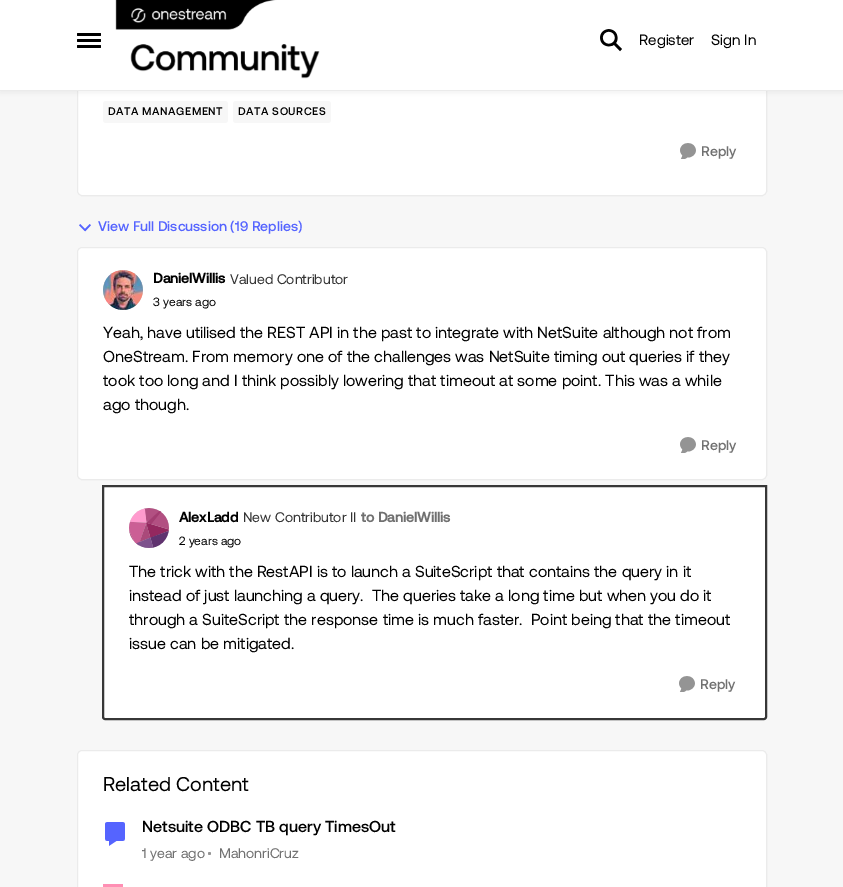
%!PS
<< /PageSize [843 887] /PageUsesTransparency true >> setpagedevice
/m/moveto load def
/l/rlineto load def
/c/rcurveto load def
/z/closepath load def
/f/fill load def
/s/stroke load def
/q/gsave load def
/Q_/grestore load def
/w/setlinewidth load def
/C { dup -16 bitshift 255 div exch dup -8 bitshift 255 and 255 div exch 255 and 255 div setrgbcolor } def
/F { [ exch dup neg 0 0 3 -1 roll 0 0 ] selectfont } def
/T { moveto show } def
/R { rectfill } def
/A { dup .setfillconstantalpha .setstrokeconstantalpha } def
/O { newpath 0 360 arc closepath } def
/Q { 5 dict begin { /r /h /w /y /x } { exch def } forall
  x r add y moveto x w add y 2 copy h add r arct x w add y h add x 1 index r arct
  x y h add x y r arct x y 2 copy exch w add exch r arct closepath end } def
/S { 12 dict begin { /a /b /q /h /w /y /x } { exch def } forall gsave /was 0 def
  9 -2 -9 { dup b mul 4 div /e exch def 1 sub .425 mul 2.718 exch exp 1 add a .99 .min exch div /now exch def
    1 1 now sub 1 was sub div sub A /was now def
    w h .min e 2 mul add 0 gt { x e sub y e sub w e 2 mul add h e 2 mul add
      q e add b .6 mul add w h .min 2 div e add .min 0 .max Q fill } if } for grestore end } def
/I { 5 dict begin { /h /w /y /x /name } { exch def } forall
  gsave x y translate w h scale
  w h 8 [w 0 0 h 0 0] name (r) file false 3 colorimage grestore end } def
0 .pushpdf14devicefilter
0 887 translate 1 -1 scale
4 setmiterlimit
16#F7F7F7 C
0 0 843 887 R
16#FFFFFF C
77 -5 690 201 5 Q f
0.08 A
16#000000 C
77.5 -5.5 689 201 4.5 Q s
1 A
16#333333 C
0 2 843 91 0 2 .06 S
16#FFFFFF C
0 0 843 90 R
16#EBEBEB C
0 90 843 1 R
16#000000 C
77 33 24 3 1 Q f
77 39 24 3 1 Q f
77 45 24 3 1 Q f
(1.rgb) 115 0 205 79 I
(2.rgb) 600 29 22 23 I
/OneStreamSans-Regular 15 F
(Register) 639 45 T
(Sign In) 711 45 T
16#F7F7F7 C
103 101 125 22 3 Q f
/OneStreamSans-Medium 11 F
16#000000 C
108 115 m .5 0 (DATA MANAGEMENT) ashow
16#F7F7F7 C
233 101 98 22 3 Q f
16#000000 C
238 115 m .5 0 (DATA SOURCES) ashow
(3.rgb) 680 143 16 16 I
/OneStreamSans-Medium 14 F
16#707070 C
(Reply) 701 156 T
(4.rgb) 79 224 12 8 I
16#5564FF C
(View Full Discussion \(19 Replies\)) 98 231 T
16#FFFFFF C
77 247 690 233 5 Q f
0.08 A
16#000000 C
77.5 247.5 689 232 4.5 Q s
1 A
16#D9D9D9 C
123 290 20 O f
(5.rgb) 103 270 40 40 I
/OneStreamSans-Bold 14 F
16#000000 C
(DanielWillis) 153 283 T
/OneStreamSans-Regular 14 F
16#333333 C
(Valued Contributor) 230 284 T
/OneStreamSans-Regular 12 F
16#000000 C
(3 years ago) 153 306 T
/OneStreamSans-Regular 16 F
(Yeah, have utilised the REST API in the past to integrate with NetSuite although not from) 103 338 T
(OneStream. From memory one of the challenges was NetSuite timing out queries if they) 103 362 T
(took too long and I think possibly lowering that timeout at some point. This was a while) 103 386 T
(ago though.) 103 410 T
(6.rgb) 680 437 16 16 I
/OneStreamSans-Medium 14 F
16#707070 C
(Reply) 701 450 T
16#FFFFFF C
103 486 m 663 0 l 0 231 l 0 1 -1 2 -2 2 c -659 0 l -1 0 -2 -1 -2 -2 c z q f Q_
16#373737 C
2 w
s
16#D9D9D9 C
149 528 20 O f
(7.rgb) 129 508 40 40 I
/OneStreamSans-Bold 14 F
16#000000 C
(AlexLadd) 179 522 T
/OneStreamSans-Regular 14 F
16#333333 C
(New Contributor II) 243 522 T
/OneStreamSans-Bold 14 F
16#707070 C
(to DanielWillis) 361 522 T
/OneStreamSans-Regular 12 F
16#000000 C
(2 years ago) 179 545 T
/OneStreamSans-Regular 16 F
(The trick with the RestAPI is to launch a SuiteScript that contains the query in it) 129 577 T
(instead of just launching a query.  The queries take a long time but when you do it) 129 601 T
(through a SuiteScript the response time is much faster.  Point being that the timeout) 129 625 T
(issue can be mitigated.) 129 649 T
(3.rgb) 679 676 16 16 I
/OneStreamSans-Medium 14 F
16#707070 C
(Reply) 700 689 T
16#FFFFFF C
77 750 690 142 5 Q f
0.08 A
16#000000 C
1 w
77.5 750.5 689 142 4.5 Q s
/OneStreamSans-Regular 20 F
1 A
(Related Content) 103 791 T
(8.rgb) 105 822 20 24 I
/OneStreamSans-Medium 16 F
(Netsuite ODBC TB query TimesOut) 142 832 T
/OneStreamSans-Regular 14 F
16#707070 C
(1 year ago) 142 858 T
16#949494 C
209.5 853.5 1.5 O f
16#707070 C
(MahonriCruz) 219 858 T
16#FF8FB4 C
103 884 20 3 R
.poppdf14devicefilter showpage
